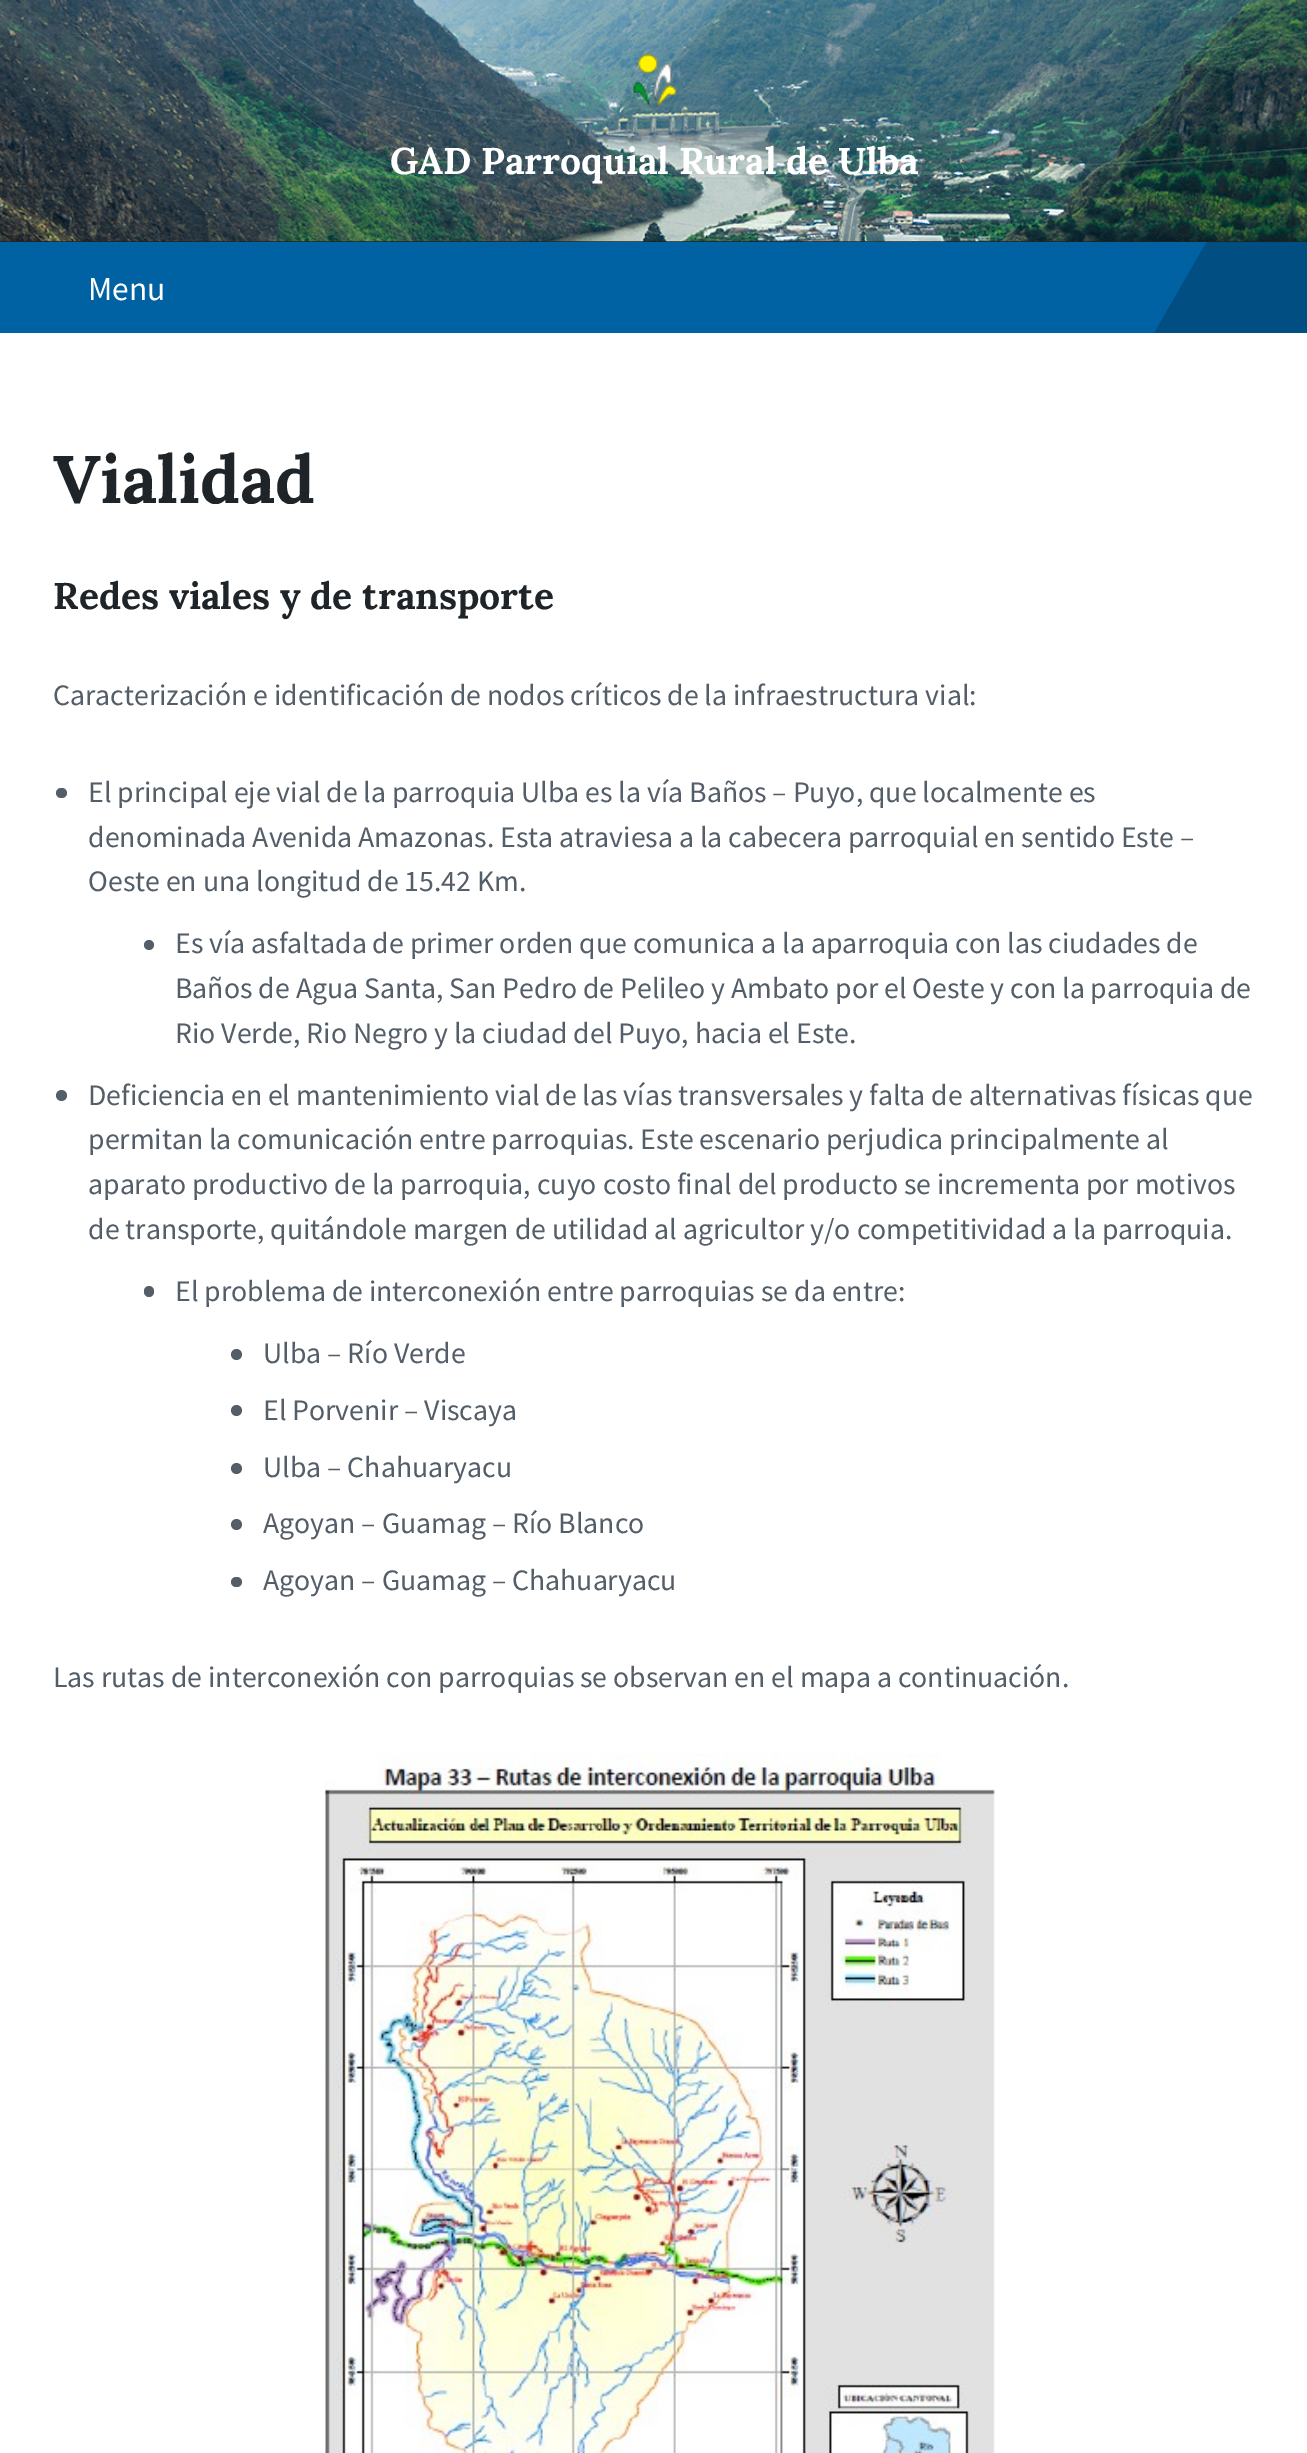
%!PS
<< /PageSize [1307 2453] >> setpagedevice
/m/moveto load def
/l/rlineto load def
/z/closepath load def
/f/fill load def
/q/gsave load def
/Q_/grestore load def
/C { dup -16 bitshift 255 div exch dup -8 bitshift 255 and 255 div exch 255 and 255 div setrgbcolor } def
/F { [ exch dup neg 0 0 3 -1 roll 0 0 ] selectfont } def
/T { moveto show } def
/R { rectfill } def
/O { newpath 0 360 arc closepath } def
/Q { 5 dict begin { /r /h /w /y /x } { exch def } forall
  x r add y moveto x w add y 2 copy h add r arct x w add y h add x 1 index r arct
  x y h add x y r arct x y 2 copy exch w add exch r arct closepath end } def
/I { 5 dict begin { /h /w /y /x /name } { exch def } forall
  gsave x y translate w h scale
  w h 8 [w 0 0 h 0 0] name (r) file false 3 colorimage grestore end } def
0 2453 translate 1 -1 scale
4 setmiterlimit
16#FFFFFF C
0 0 1307 2453 R
16#1E2427 C
0 241 1307 1 R
(1.rgb) 0 0 1307 242 I
(2.rgb) 632 52 46 57 I
/Lora-Bold 37.25 F
16#FFFFFF C
(GAD Parroquial Rural de Ulba) 390 174 T
16#0062A3 C
0 242 1207 91 R
/SourceSansPro-Regular 33.5 F
16#FFFFFF C
(Menu) 88 300 T
q
0 242 1307 91 rectclip
16#004E82 C
1240 184 m 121 70 l -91 158 l -121 -70 l z f
Q_
/Lora-Bold 67 F
16#1E2427 C
(Vialidad) 53 503 T
/Lora-Bold 37.25 F
(Redes viales y de transporte) 53 609 T
/SourceSansPro-Regular 29.75 F
16#545E69 C
(Caracterización e identificación de nodos críticos de la infraestructura vial:) 53 705 T
56 788 11 10 5 Q f
(El principal eje vial de la parroquia Ulba es la vía Baños – Puyo, que localmente es) 88 802 T
(denominada Avenida Amazonas. Esta atraviesa a la cabecera parroquial en sentido Este –) 88 847 T
(Oeste en una longitud de 15.42 Km.) 88 891 T
149 945 5 O f
(Es vía asfaltada de primer orden que comunica a la aparroquia con las ciudades de) 175 953 T
(Baños de Agua Santa, San Pedro de Pelileo y Ambato por el Oeste y con la parroquia de) 175 998 T
(Rio Verde, Rio Negro y la ciudad del Puyo, hacia el Este.) 175 1043 T
61.5 1095.5 5.5 O f
(Deficiencia en el mantenimiento vial de las vías transversales y falta de alternativas físicas que) 88 1105 T
(permitan la comunicación entre parroquias. Este escenario perjudica principalmente al) 88 1149 T
(aparato productivo de la parroquia, cuyo costo final del producto se incrementa por motivos) 88 1194 T
(de transporte, quitándole margen de utilidad al agricultor y/o competitividad a la parroquia.) 88 1239 T
144 1286 10 11 5 Q f
(El problema de interconexión entre parroquias se da entre:) 175 1301 T
236.5 1354.5 5.5 O f
(Ulba – Río Verde) 263 1363 T
236.5 1410.5 5.5 O f
(El Porvenir – Viscaya) 263 1420 T
236.5 1468.5 5.5 O f
(Ulba – Chahuaryacu) 263 1477 T
236.5 1524.5 5.5 O f
(Agoyan – Guamag – Río Blanco) 263 1533 T
231 1577 11 10 5 Q f
(Agoyan – Guamag – Chahuaryacu) 263 1590 T
(Las rutas de interconexión con parroquias se observan en el mapa a continuación.) 53 1687 T
(3.rgb) 324 1753 671 700 I
showpage
